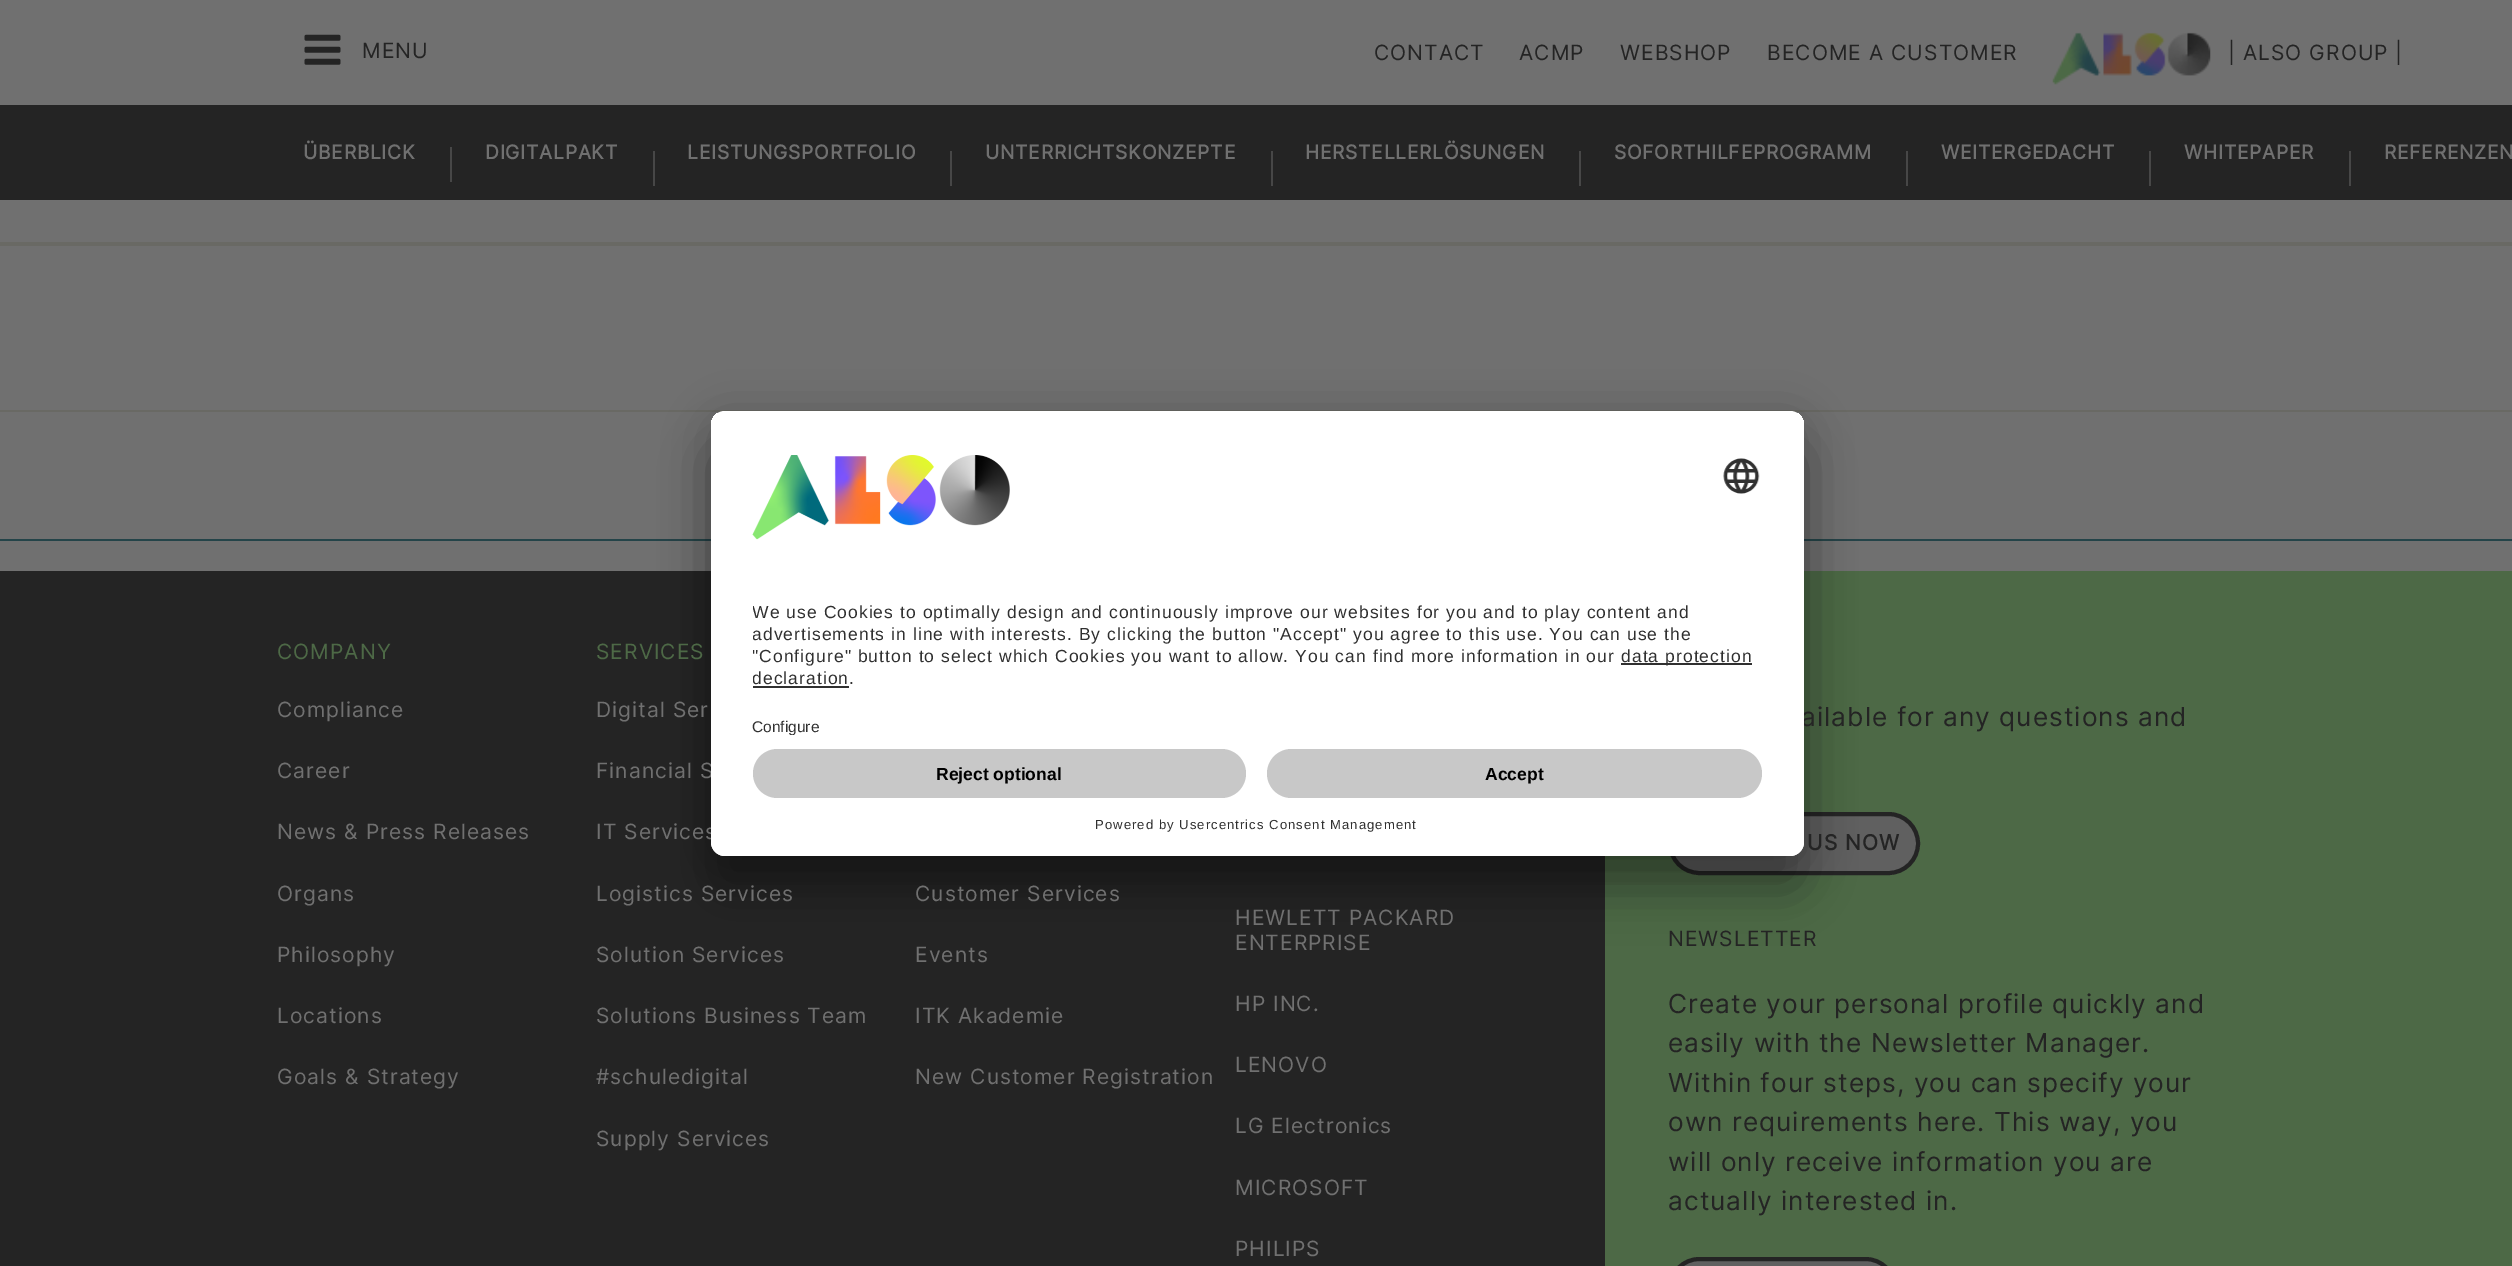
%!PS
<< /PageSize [2512 1266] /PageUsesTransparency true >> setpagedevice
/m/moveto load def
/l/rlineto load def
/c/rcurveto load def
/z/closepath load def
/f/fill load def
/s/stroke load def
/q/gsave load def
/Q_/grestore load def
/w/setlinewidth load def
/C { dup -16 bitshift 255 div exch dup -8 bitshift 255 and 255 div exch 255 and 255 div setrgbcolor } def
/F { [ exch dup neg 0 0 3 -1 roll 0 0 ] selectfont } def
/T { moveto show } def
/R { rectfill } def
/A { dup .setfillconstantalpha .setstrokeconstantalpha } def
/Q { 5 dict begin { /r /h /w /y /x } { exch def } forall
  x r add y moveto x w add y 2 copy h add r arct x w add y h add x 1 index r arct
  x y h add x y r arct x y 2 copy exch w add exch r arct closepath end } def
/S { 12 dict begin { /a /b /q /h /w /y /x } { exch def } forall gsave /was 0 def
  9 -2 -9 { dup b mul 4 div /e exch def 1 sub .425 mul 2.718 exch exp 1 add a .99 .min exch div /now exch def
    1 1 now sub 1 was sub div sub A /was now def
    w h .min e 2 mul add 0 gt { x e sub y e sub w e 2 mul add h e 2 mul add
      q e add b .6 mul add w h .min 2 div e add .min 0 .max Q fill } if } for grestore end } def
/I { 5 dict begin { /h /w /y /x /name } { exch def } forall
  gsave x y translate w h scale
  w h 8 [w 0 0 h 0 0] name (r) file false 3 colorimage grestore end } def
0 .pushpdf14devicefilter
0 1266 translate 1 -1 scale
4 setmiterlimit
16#707070 C
0 0 2512 1266 R
(1.rgb) 304 34 37 31 I
/Inter-Regular 21 F
16#242424 C
362 58 m 1.05 0 (MENU) ashow
1374 60 m 1.05 0 (CONTACT) ashow
1519 60 m 1.05 0 (ACMP) ashow
1620 60 m 1.05 0 (WEBSHOP) ashow
1767 60 m 1.05 0 (BECOME A CUSTOMER) ashow
(2.rgb) 2052 32 159 53 I
2228 60 m 1.05 0 (| ALSO GROUP |) ashow
0 105 2512 95 R
/Inter-Bold 19.25 F
16#707070 C
303 159 m .75 0 (ÜBERBLICK) ashow
16#474747 C
450 147 2 35 R
16#707070 C
485 159 m .75 0 (DIGITALPAKT) ashow
16#474747 C
653 151 2 35 R
16#707070 C
687 159 m .75 0 (LEISTUNGSPORTFOLIO) ashow
16#474747 C
950 151 2 35 R
16#707070 C
985 159 m .75 0 (UNTERRICHTSKONZEPTE) ashow
16#474747 C
1271 151 2 35 R
16#707070 C
1305 159 m .75 0 (HERSTELLERLÖSUNGEN) ashow
16#474747 C
1579 151 2 35 R
16#707070 C
1614 159 m .75 0 (SOFORTHILFEPROGRAMM) ashow
16#474747 C
1906 151 2 35 R
16#707070 C
1941 159 m .75 0 (WEITERGEDACHT) ashow
16#474747 C
2149 151 2 35 R
16#707070 C
2184 159 m .75 0 (WHITEPAPER) ashow
16#474747 C
2349 151 2 35 R
16#707070 C
2384 159 m .75 0 (REFERENZEN) ashow
16#696964 C
0 242 2512 4 R
0 410 2512 2 R
16#244449 C
0 539 2512 2 R
16#242424 C
0 571 1605 695 R
16#4D6946 C
1605 571 907 695 R
16#606060 C
1670 814 248 59 29.5 Q q f Q_
16#242424 C
4 w
s
16#000000 C
711 446 1093 445 14 24.5 .3 S
711 420 1093 445 14 23 .22 S
/Inter-Regular 21 F
16#707070 C
596 778 m 1.05 0 (Financial S) ashow
596 839 m 1.05 0 (IT Services) ashow
/Inter-Regular 26.25 F
16#242424 C
1801 726 m 1.05 0 (ailable for any questions and) ashow
16#FFFFFF C
711 411 1093 445 14 Q f
q
711 411 1093 445 14 Q clip newpath
725 411 m 1065 0 l 7.5 0 14 6.5 14 14 c 0 310 l -1093 0 l 0 -310 l 0 -7.5 6.5 -14 14 -14 c z clip newpath
711 413 1093 322 R
Q_
(3.rgb) 752 455 258 85 I
(4.rgb) 1723 458 37 36 I
q
753 595 1009 102 rectclip
/LiberationSans-Regular 17.5 F
16#303030 C
752 618 m 1.05 0 (We use Cookies to optimally design and continuously improve our websites for you and to play content and) ashow
752 640 m 1.05 0 (advertisements in line with interests. By clicking the button "Accept" you agree to this use. You can use the) ashow
752 662 m 1.05 0 ("Configure" button to select which Cookies you want to allow. You can find more information in our) ashow
Q_
16#303030 C
1621 663 131 2 R
/LiberationSans-Regular 17.5 F
1621 662 m 1.05 0 (data protection) ashow
q
753 595 1009 102 rectclip
752 684 m 1.05 0 (declaration) ashow
Q_
849 684 m 1.05 0 (.) ashow
753 686 96 2 R
/LiberationSans-Regular 15.5 F
(Configure) 752 732 T
16#FFFFFF C
711 735 m 1093 0 l 0 107 l 0 7.5 -6.5 14 -14 14 c -1065 0 l -7.5 0 -14 -6.5 -14 -14 c z f
16#C8C8C8 C
753 749 493 49 24.5 Q f
/LiberationSans-Bold 17.5 F
16#000000 C
(Reject optional) 936 780 T
16#C8C8C8 C
1267 749 495 49 24.5 Q f
16#000000 C
(Accept) 1485 780 T
/LiberationSans-Regular 13.1 F
16#303030 C
1095 829 m 1.05 0 (Powered by Usercentrics Consent Management) ashow
/Inter-Regular 21 F
16#4D6946 C
277 659 m 1.05 0 (COMPANY) ashow
16#707070 C
277 717 m 1.05 0 (Compliance) ashow
277 778 m 1.05 0 (Career) ashow
277 839 m 1.05 0 (News & Press Releases) ashow
277 901 m 1.05 0 (Organs) ashow
277 962 m 1.05 0 (Philosophy) ashow
277 1023 m 1.05 0 (Locations) ashow
277 1084 m 1.05 0 (Goals & Strategy) ashow
16#4D6946 C
596 659 m 1.05 0 (SERVICES) ashow
16#707070 C
596 717 m 1.05 0 (Digital Ser) ashow
596 901 m 1.05 0 (Logistics Services) ashow
596 962 m 1.05 0 (Solution Services) ashow
596 1023 m 1.05 0 (Solutions Business Team) ashow
596 1084 m 1.05 0 (#schuledigital) ashow
596 1146 m 1.05 0 (Supply Services) ashow
915 901 m 1.05 0 (Customer Services) ashow
915 962 m 1.05 0 (Events) ashow
915 1023 m 1.05 0 (ITK Akademie) ashow
915 1084 m 1.05 0 (New Customer Registration) ashow
1235 925 m 1.05 0 (HEWLETT PACKARD) ashow
1235 950 m 1.05 0 (ENTERPRISE) ashow
1235 1011 m 1.05 0 (HP INC.) ashow
1235 1072 m 1.05 0 (LENOVO) ashow
1235 1133 m 1.05 0 (LG Electronics) ashow
1235 1195 m 1.05 0 (MICROSOFT) ashow
1235 1256 m 1.05 0 (PHILIPS) ashow
/Inter-Bold 21 F
16#242424 C
1807 850 m 1.05 0 (US NOW) ashow
/Inter-Regular 21 F
1668 946 m 1.05 0 (NEWSLETTER) ashow
/Inter-Regular 26.25 F
1668 1013 m 1.05 0 (Create your personal profile quickly and) ashow
1668 1052 m 1.05 0 (easily with the Newsletter Manager.) ashow
1668 1092 m 1.05 0 (Within four steps, you can specify your) ashow
1668 1131 m 1.05 0 (own requirements here. This way, you) ashow
1668 1171 m 1.05 0 (will only receive information you are) ashow
1668 1210 m 1.05 0 (actually interested in.) ashow
16#606060 C
1670 1259 225 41 29.5 Q q f Q_
16#242424 C
s
.poppdf14devicefilter showpage
